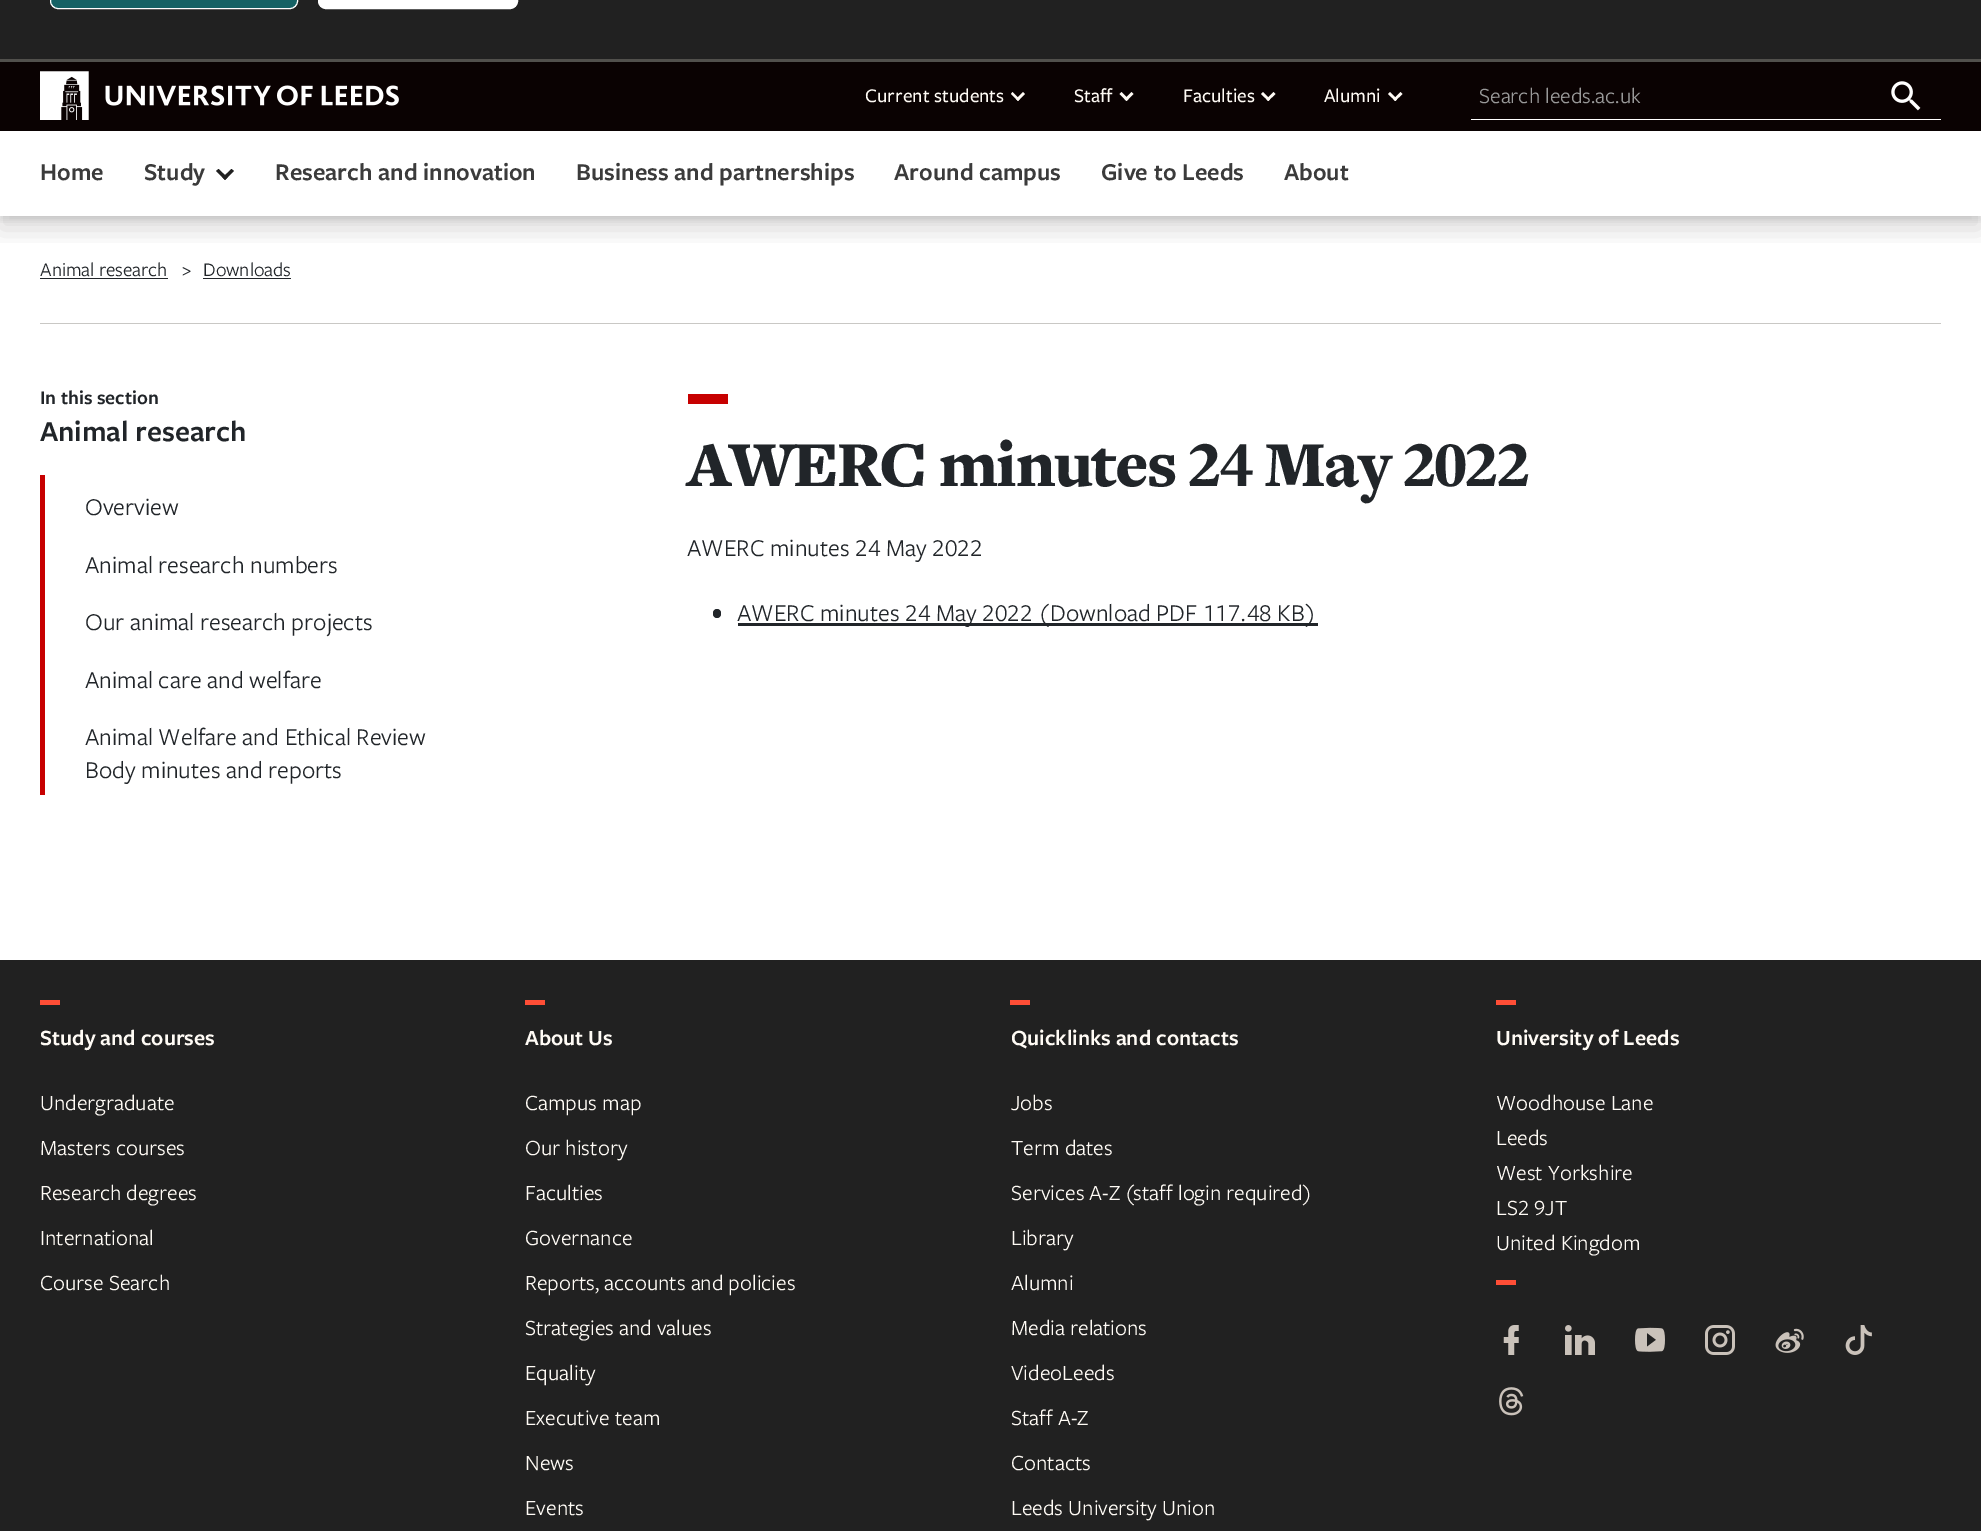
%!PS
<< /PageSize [1981 1531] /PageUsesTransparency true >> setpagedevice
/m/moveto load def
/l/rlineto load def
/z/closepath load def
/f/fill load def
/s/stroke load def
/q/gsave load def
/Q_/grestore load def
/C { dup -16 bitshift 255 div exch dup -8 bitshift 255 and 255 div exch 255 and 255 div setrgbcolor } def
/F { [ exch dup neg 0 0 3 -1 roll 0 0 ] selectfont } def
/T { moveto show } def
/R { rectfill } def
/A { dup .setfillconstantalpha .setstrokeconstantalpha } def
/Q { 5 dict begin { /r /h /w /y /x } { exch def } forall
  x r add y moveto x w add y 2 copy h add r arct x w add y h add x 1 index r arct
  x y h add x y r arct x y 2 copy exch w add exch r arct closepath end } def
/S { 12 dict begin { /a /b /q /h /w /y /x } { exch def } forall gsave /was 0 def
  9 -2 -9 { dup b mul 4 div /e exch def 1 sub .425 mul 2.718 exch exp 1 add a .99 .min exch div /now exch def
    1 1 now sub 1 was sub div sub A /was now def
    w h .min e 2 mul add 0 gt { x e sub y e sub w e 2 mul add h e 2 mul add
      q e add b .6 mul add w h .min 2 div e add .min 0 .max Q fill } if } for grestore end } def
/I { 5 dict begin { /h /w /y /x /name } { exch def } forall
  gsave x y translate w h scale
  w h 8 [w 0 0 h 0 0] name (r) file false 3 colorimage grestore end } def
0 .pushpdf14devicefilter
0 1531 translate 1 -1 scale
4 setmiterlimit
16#FFFFFF C
0 0 1981 1531 R
q
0 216 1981 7 rectclip
16#0A0202 C
0 65 1981 155 0 4 .1 S
Q_
q
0 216 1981 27 rectclip
16#0A0202 C
0 74 1981 155 0 12.5 .15 S
Q_
16#212121 C
0 0 1981 59 R
16#51504C C
0 59 1981 3 R
16#156265 C
50.5 -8.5 247 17 7.5 Q q f Q_
16#FFFFFF C
s
318.5 -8.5 199 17 7.5 Q q f Q_
s
16#0A0202 C
0 62 1981 69 R
(1.rgb) 40 71 359 49 I
/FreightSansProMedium-Medium 20 F
16#FFFBF5 C
(Current students) 865 102 T
1012.5 92 m 7 7 l -1.5 2 l -7 -7 l z f
1016 99 m 7 -7 l 2 2 l -7 7 l z f
(Staff) 1074 102 T
1121.5 92 m 7 7 l -2 2 l -7 -7 l z f
1124.5 99 m 7 -7 l 2 2 l -7 7 l z f
(Faculties) 1183 102 T
1263 92 m 7 7 l -1.5 2 l -7.5 -7 l z f
1266.5 99 m 7 -7 l 2 2 l -7.5 7 l z f
(Alumni) 1324 102 T
1390 92 m 7 7 l -1.5 2 l -7.5 -7 l z f
1393.5 99 m 7 -7 l 2 2 l -7.5 7 l z f
16#FFFFFF C
1471 119 470 1 R
/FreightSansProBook-Regular 22.5 F
16#999999 C
(Search leeds.ac.uk) 1479 103 T
(2.rgb) 1891 81 30 30 I
/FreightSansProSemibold-SemiBold 25 F
16#3B3B3B C
(Home) 40 180 T
(Study) 144 180 T
16#212121 C
218.5 169 m 9 8.5 l -2.5 2.5 l -9 -9 l z f
222.5 177.5 m 9 -8.5 l 2.5 2 l -9 9 l z f
16#3B3B3B C
(Research and innovation) 275 180 T
(Business and partnerships) 576 180 T
(Around campus) 894 180 T
(Give to Leeds) 1101 180 T
(About) 1284 180 T
16#C9C8C5 C
40 323 1901 1 R
/FreightSansProBook-Regular 20 F
16#212529 C
(Animal research) 40 276 T
40 278 128 1 R
(>) 182 276 T
(Downloads) 203 276 T
203 278 88 1 R
/FreightSansProSemibold-SemiBold 20 F
(In this section) 40 404 T
/FreightSansProSemibold-SemiBold 30 F
(Animal research) 40 441 T
16#C70000 C
40 475 5 320 R
/FreightSansProBook-Regular 25 F
16#212529 C
(Overview) 85 515 T
(Animal research numbers) 85 573 T
(Our animal research projects) 85 630 T
(Animal care and welfare) 85 688 T
(Animal Welfare and Ethical Review) 85 745 T
(Body minutes and reports) 85 778 T
16#C70000 C
688 394 40 10 R
/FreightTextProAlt-Black 66.25 F
16#212529 C
687 486 m -1.8 0 (AWERC minutes 24 May 2022) ashow
/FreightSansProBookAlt-Regular 25 F
(AWERC minutes 24 May 2022) 687 556 T
713 609 8 9 4 Q f
738 623 580 3 R
(AWERC minutes 24 May 2022 \(Download PDF 117.48 KB\)) 737 621 T
16#212121 C
0 960 1981 571 R
16#FF4E36 C
40 1000 20 5 R
/FreightSansProSemibold-SemiBold 22.5 F
16#FFFBF5 C
(Study and courses) 40 1045 T
/FreightSansProBook-Regular 22.5 F
(Undergraduate) 40 1110 T
(Masters courses) 40 1155 T
(Research degrees) 40 1200 T
(International) 40 1245 T
(Course Search) 40 1290 T
16#FF4E36 C
525 1000 20 5 R
/FreightSansProSemibold-SemiBold 22.5 F
16#FFFBF5 C
(About Us) 525 1045 T
/FreightSansProBook-Regular 22.5 F
(Campus map) 525 1110 T
(Our history) 525 1155 T
(Faculties) 525 1200 T
(Governance) 525 1245 T
(Reports, accounts and policies) 525 1290 T
(Strategies and values) 525 1335 T
(Equality) 525 1380 T
(Executive team) 525 1425 T
(News) 525 1470 T
(Events) 525 1515 T
16#FF4E36 C
1010 1000 20 5 R
/FreightSansProSemibold-SemiBold 22.5 F
16#FFFBF5 C
(Quicklinks and contacts) 1011 1045 T
/FreightSansProBook-Regular 22.5 F
(Jobs) 1011 1110 T
(Term dates) 1011 1155 T
(Services A-Z \(staff login required\)) 1011 1200 T
(Library) 1011 1245 T
(Alumni) 1011 1290 T
(Media relations) 1011 1335 T
(VideoLeeds) 1011 1380 T
(Staff A-Z) 1011 1425 T
(Contacts) 1011 1470 T
(Leeds University Union) 1011 1515 T
16#FF4E36 C
1496 1000 20 5 R
/FreightSansProSemibold-SemiBold 22.5 F
16#FFFBF5 C
(University of Leeds) 1496 1045 T
/FreightSansProBook-Regular 22.5 F
(Woodhouse Lane) 1496 1110 T
(Leeds) 1496 1145 T
(West Yorkshire) 1496 1180 T
/FreightSansProBookAlt-Regular 22.5 F
(LS2 9JT) 1496 1215 T
/FreightSansProBook-Regular 22.5 F
(United Kingdom) 1496 1250 T
16#FF4E36 C
1496 1280 20 5 R
(3.rgb) 1503 1325 16 30 I
(4.rgb) 1565 1325 30 30 I
(5.rgb) 1635 1327 30 25 I
(6.rgb) 1705 1325 30 30 I
(7.rgb) 1775 1328 29 25 I
(8.rgb) 1845 1325 27 30 I
(9.rgb) 1499 1387 25 29 I
.poppdf14devicefilter showpage
